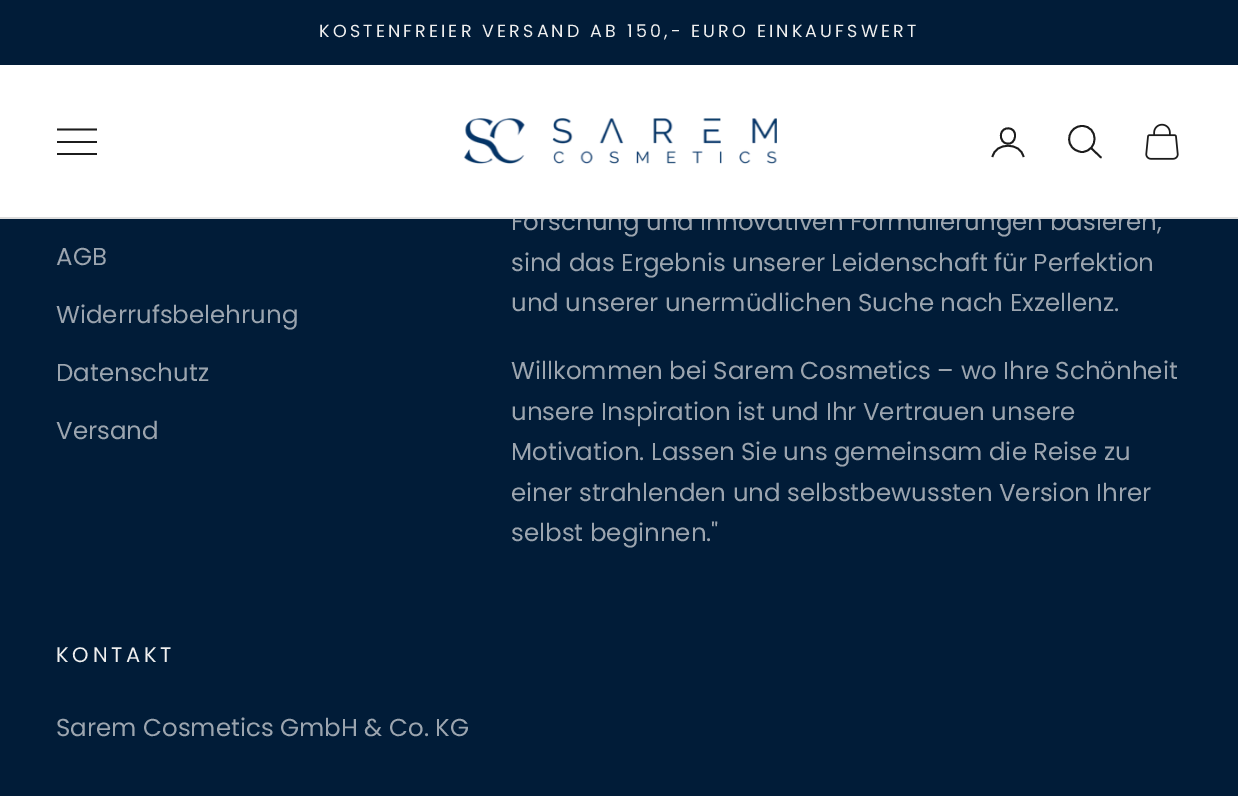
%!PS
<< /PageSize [1238 796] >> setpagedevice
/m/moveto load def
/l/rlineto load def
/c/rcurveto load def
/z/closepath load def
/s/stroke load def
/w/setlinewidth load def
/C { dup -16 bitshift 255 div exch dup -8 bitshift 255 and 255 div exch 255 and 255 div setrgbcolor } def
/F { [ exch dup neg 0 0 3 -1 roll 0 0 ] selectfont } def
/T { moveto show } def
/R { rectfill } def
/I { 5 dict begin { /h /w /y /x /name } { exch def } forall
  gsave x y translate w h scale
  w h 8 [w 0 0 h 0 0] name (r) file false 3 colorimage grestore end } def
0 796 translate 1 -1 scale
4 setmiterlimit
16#011C38 C
0 0 1238 796 R
/Poppins-Regular 17.5 F
16#EFEFEF C
319 37 m 3.15 0 (KOSTENFREIER VERSAND AB 150,- EURO EINKAUFSWERT) ashow
/Poppins-Regular 24.5 F
16#9CA5AF C
(Forschung und innovativen Formulierungen basieren,) 511 230 T
16#FFFFFF C
0 65 1238 152 R
16#DDDDDD C
0 217 1238 2 R
16#1C1C1C C
1.8 w
2 setlinecap
58 154 m 38 0 l 58 142 m 38 0 l 58 129.5 m 38 0 l s
(1.rgb) 463 118 314 46 I
1 setlinecap
1 setlinejoin
1015 136 m -.5 11.5 -15.5 9.5 -14 -1.5 c 1 -9 15 -8 14 1.5 c z s
0 setlinecap
0 setlinejoin
992.5 157 m 2.5 -15 28.5 -15 31 0 c s
1082 126 m -13 0 -18 17.5 -6.5 24 c 2 1 4.5 2 6.5 2 c 17 -1 16.5 -26 0 -26 c z s
1 setlinecap
1091.5 148.5 m 9.5 9 l s
(2.rgb) 1145 123 34 37 I
16#9CA5AF C
(AGB) 56 265 T
(Widerrufsbelehrung) 56 323 T
(Datenschutz) 56 381 T
(Versand) 56 439 T
(sind das Ergebnis unserer Leidenschaft für Perfektion) 511 271 T
(und unserer unermüdlichen Suche nach Exzellenz.) 511 311 T
(Willkommen bei Sarem Cosmetics – wo Ihre Schönheit) 511 379 T
(unsere Inspiration ist und Ihr Vertrauen unsere) 511 420 T
(Motivation. Lassen Sie uns gemeinsam die Reise zu) 511 460 T
(einer strahlenden und selbstbewussten Version Ihrer) 511 501 T
(selbst beginnen.") 511 541 T
/Poppins-Regular 21 F
16#EFEFEF C
56 662 m 3.75 0 (KONTAKT) ashow
/Poppins-Regular 24.5 F
16#9CA5AF C
(Sarem Cosmetics GmbH & Co. KG) 56 736 T
showpage
